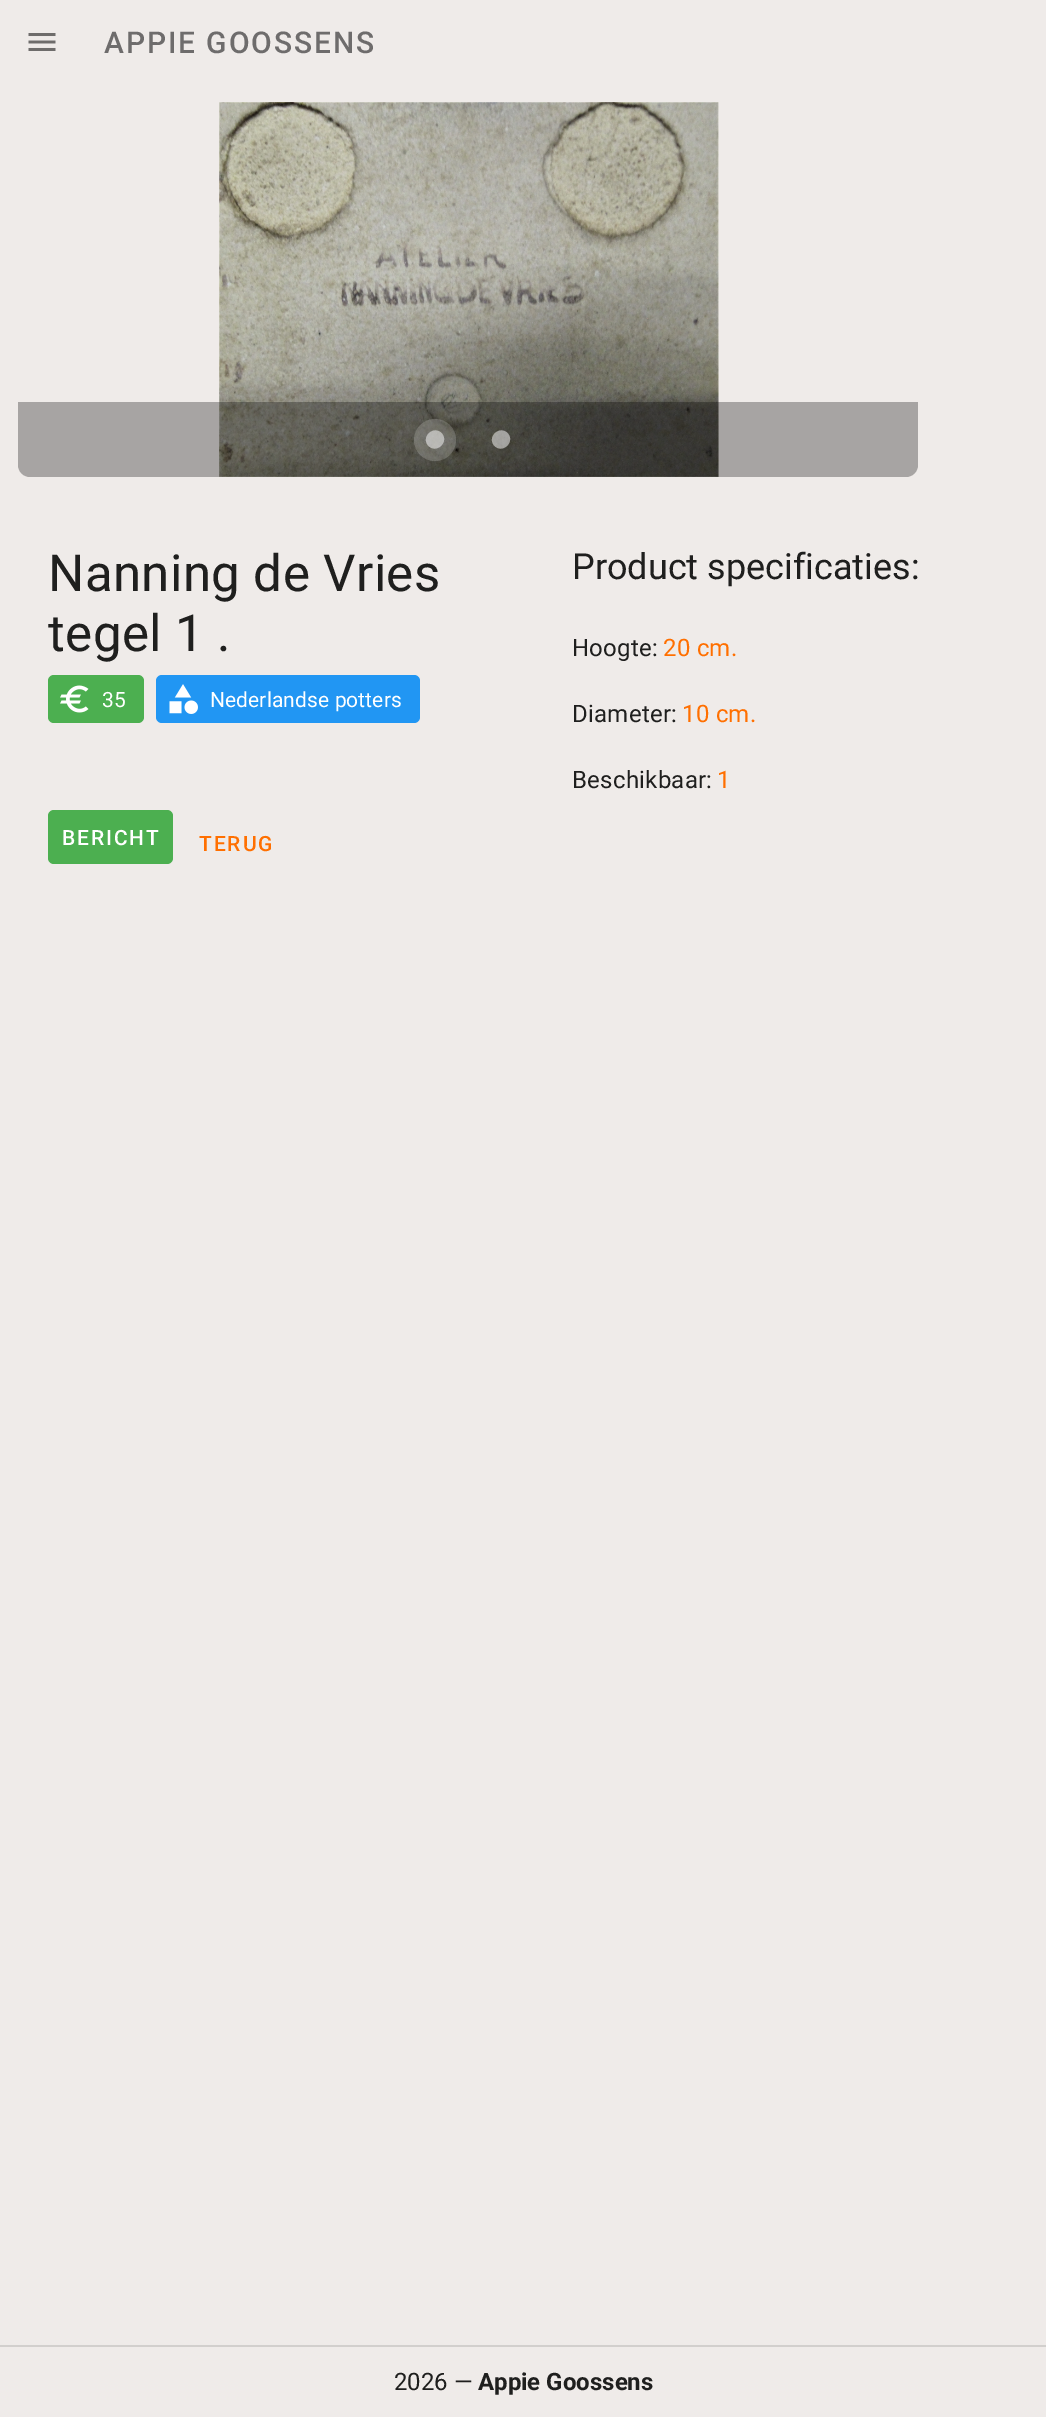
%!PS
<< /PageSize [1046 2417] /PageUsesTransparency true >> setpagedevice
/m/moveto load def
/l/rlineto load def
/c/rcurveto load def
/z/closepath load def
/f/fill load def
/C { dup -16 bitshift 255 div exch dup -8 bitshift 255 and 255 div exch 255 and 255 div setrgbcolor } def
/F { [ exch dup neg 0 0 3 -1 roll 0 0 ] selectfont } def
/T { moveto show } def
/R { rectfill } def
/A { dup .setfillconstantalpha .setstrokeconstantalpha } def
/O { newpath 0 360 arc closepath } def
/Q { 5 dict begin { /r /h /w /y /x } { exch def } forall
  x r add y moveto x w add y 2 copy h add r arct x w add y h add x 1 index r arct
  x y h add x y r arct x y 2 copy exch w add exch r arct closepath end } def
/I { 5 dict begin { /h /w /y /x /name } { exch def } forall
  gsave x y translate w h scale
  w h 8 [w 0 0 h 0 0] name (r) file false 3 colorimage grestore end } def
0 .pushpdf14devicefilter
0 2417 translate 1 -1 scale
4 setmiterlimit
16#EFEBE9 C
0 0 1046 2417 R
(1.rgb) 28 33 28 18 I
/Roboto-Medium 30 F
16#6E6C6C C
104 53 m 1.9 0 (APPIE GOOSSENS) ashow
(2.rgb) 219 102 500 375 I
0.3 A
16#000000 C
18 402 m 900 0 l 0 63 l 0 6.5 -5.5 12 -12 12 c -876 0 l -6.5 0 -12 -5.5 -12 -12 c z f
0.18 A
16#FFFFFF C
435 440 21 O f
0.5 A
428.5 446 m -8 -8.5 4.5 -21 13 -13 c 8 8.5 -4.5 21 -13 13 c z f
494.5 446 m -8 -8.5 4.5 -21 13 -13 c 8 8.5 -4.5 21 -13 13 c z f
/Roboto-Regular 51 F
1 A
16#1F1F1E C
48 591 m .4 0 (Nanning de Vries) ashow
48 651 m .4 0 (tegel 1 .) ashow
16#4CAF50 C
48 675 96 48 6 Q f
(3.rgb) 60 685 29 28 I
/Roboto-Regular 21 F
16#FFFFFF C
102 707 m .1 0 (35) ashow
16#2196F3 C
156 675 264 48 6 Q f
(4.rgb) 169 684 29 30 I
16#FFFFFF C
210 707 m .1 0 (Nederlandse potters) ashow
16#4CAF50 C
48 810 125 54 6 Q f
/Roboto-Medium 21 F
16#FFFFFF C
62 845 m 1.9 0 (BERICHT) ashow
16#FF6F00 C
199 851 m 1.9 0 (TERUG) ashow
/Roboto-Regular 36 F
16#1F1F1E C
(Product specificaties:) 572 579 T
/Roboto-Regular 24 F
572 656 m .25 0 (Hoogte:) ashow
16#FF6F00 C
663 656 m .25 0 (20 cm.) ashow
16#1F1F1E C
572 722 m .25 0 (Diameter:) ashow
16#FF6F00 C
682 722 m .25 0 (10 cm.) ashow
16#1F1F1E C
572 788 m .25 0 (Beschikbaar:) ashow
16#FF6F00 C
717 788 m .25 0 (1) ashow
16#D2CFCD C
0 2345 1046 2 R
16#1F1F1E C
(2026 —) 394 2390 T
/Roboto-Bold 24 F
(Appie Goossens) 478 2390 T
.poppdf14devicefilter showpage
